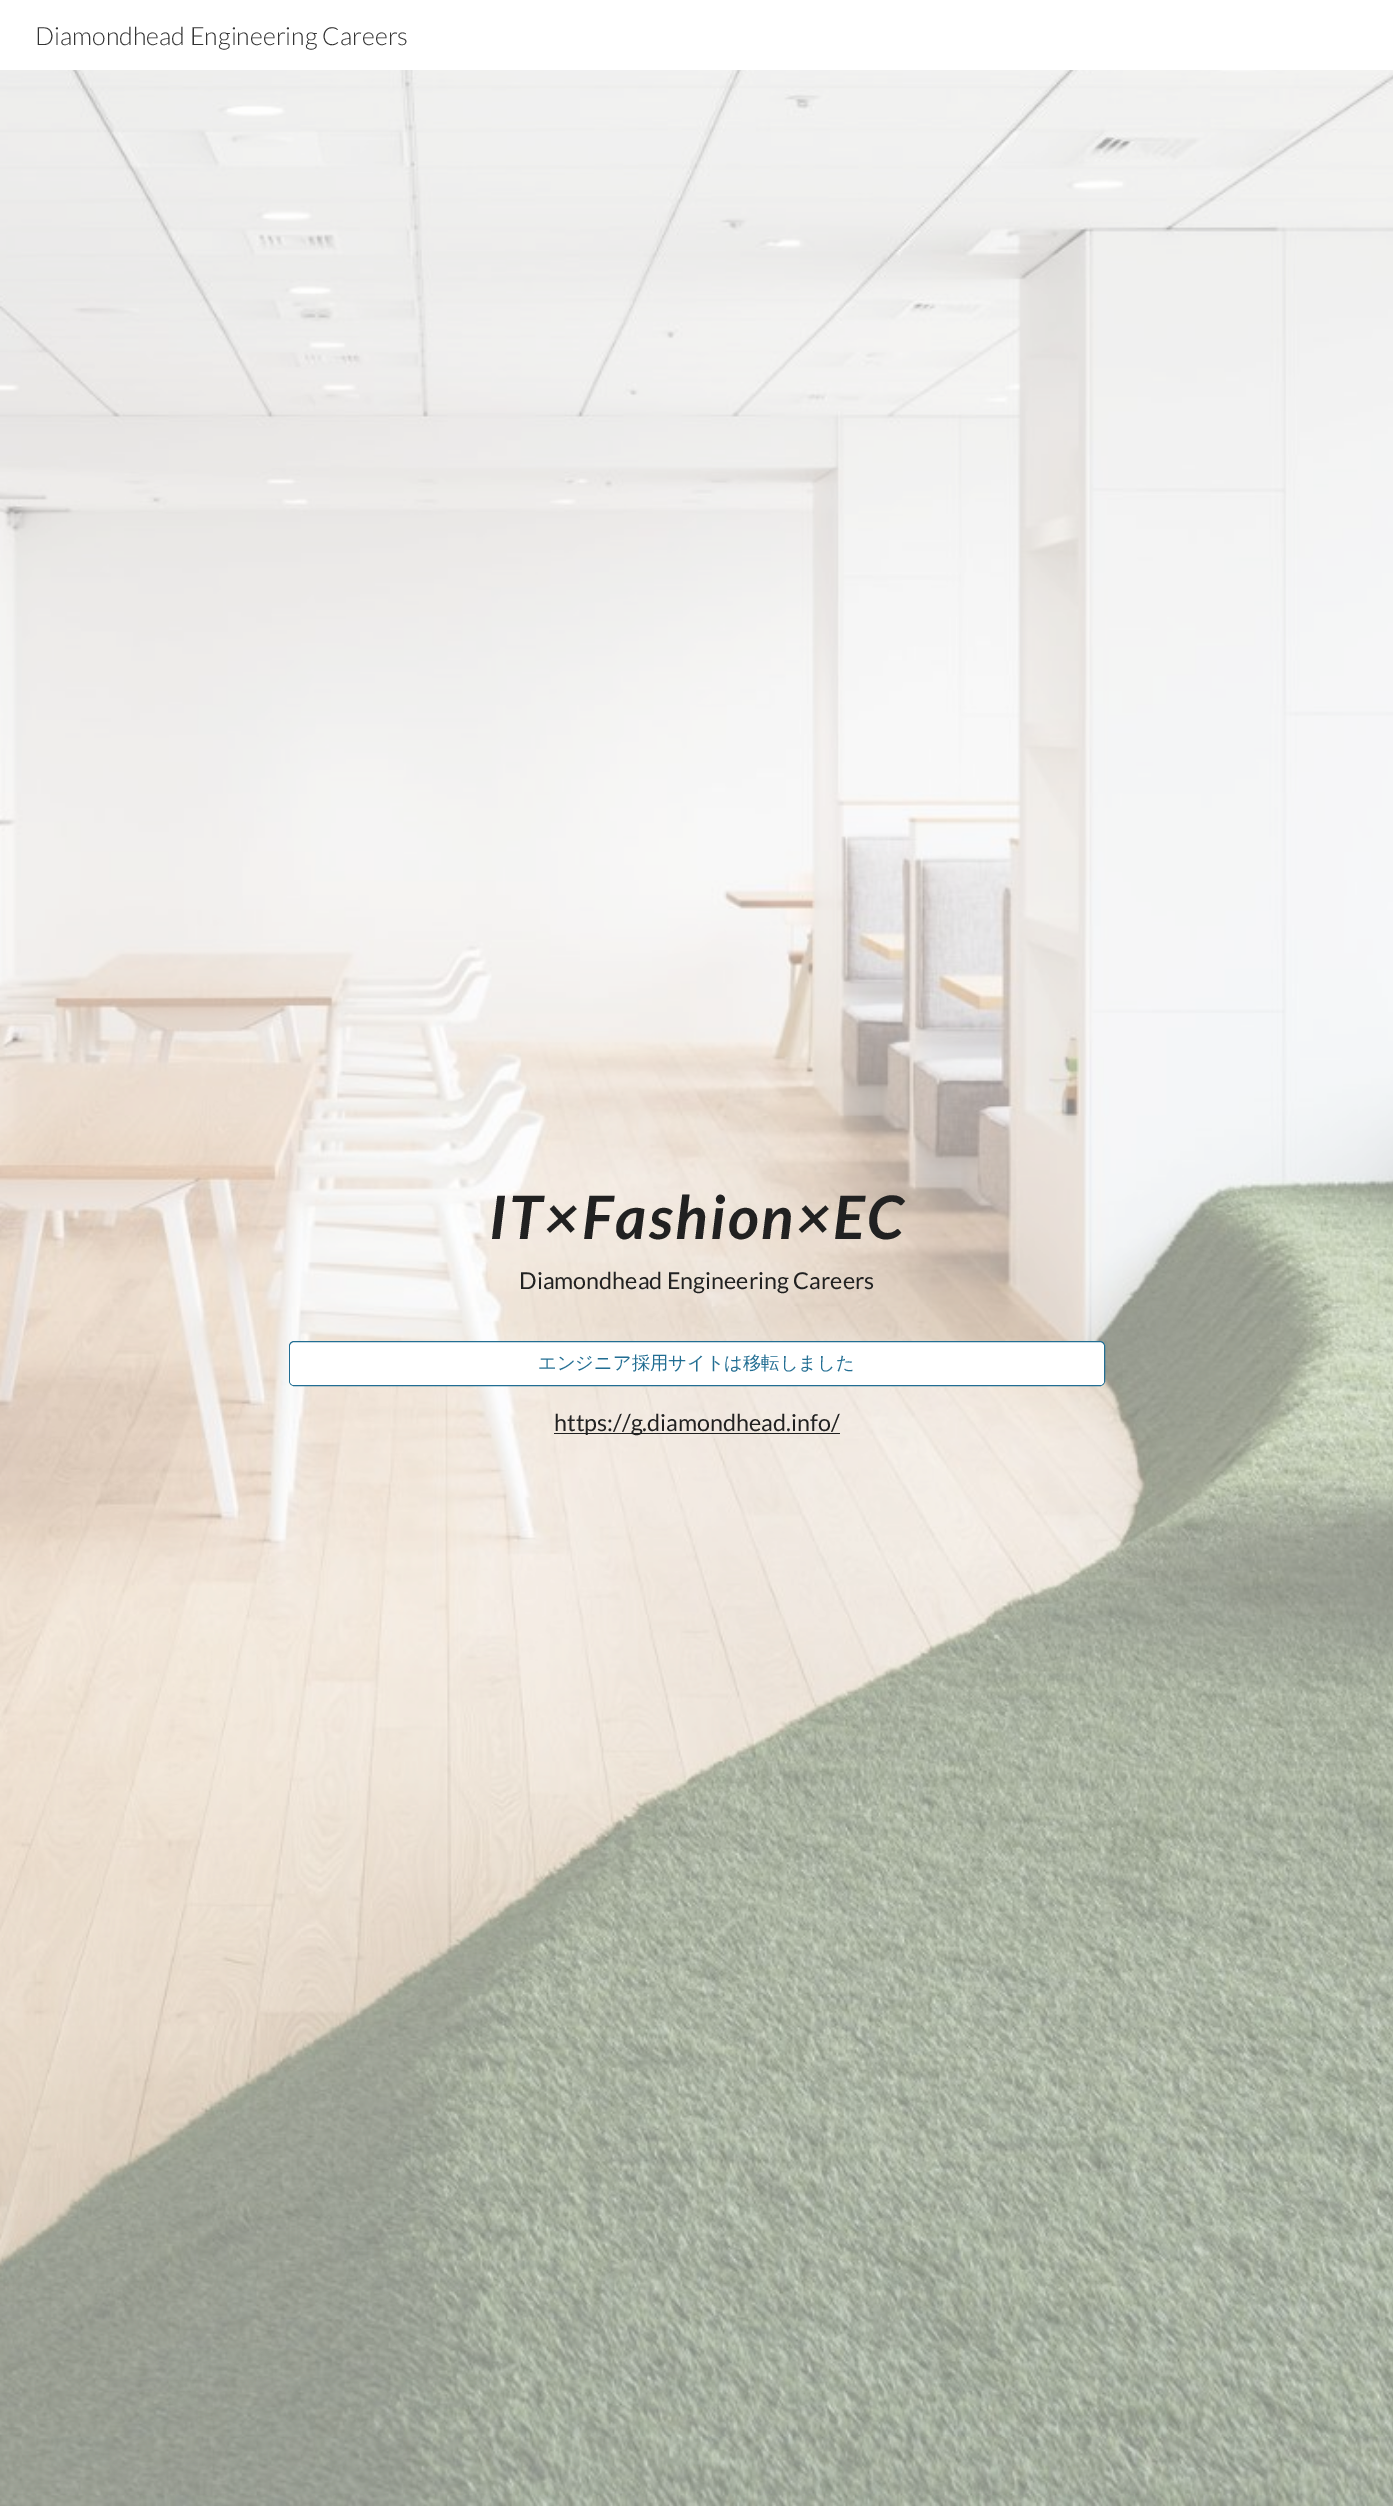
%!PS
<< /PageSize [1393 2506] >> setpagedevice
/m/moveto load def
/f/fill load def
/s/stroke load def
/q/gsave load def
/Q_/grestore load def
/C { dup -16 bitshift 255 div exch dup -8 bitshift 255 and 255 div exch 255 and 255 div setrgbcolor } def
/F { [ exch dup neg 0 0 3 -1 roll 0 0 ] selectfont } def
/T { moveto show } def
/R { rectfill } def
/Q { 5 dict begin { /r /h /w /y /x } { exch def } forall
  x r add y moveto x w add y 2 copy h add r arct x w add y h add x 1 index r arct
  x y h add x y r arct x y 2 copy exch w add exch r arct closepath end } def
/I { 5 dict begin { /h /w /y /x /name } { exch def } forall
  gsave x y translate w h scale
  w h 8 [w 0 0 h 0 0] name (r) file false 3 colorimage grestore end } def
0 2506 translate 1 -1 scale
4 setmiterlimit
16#FFFFFF C
0 0 1393 2506 R
/Lato-Light 25 F
16#333333 C
(Diamondhead Engineering Careers) 35 45 T
(1.rgb) 0 70 1393 2436 I
/Lato-BoldItalic 60 F
16#212121 C
489 1239 m 2.5 0 (IT×Fashion×EC) ashow
/Lato-Regular 23.3 F
(Diamondhead Engineering Careers) 519 1289 T
16#FFFFFF C
289.5 1341.5 815 44 4.5 Q q f Q_
16#226E93 C
s
16#FFFFFF C
290 1343 814 42 4 Q f
/WenQuanYiZenHei-Medium 18.3 F
16#226E93 C
(エンジニア採用サイトは移転しました) 538 1369 T
16#212121 C
554 1433 286 1 R
/Lato-Regular 23.3 F
(https://g.diamondhead.info/) 554 1431 T
showpage
